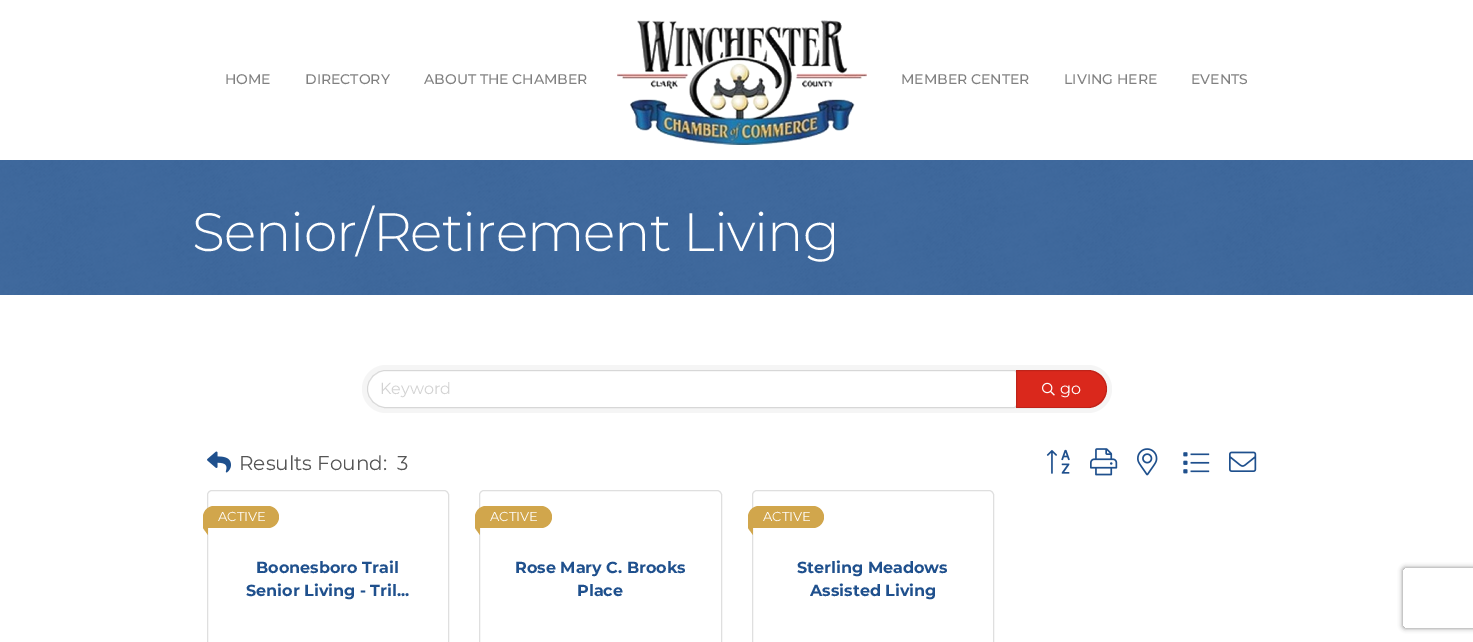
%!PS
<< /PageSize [1473 642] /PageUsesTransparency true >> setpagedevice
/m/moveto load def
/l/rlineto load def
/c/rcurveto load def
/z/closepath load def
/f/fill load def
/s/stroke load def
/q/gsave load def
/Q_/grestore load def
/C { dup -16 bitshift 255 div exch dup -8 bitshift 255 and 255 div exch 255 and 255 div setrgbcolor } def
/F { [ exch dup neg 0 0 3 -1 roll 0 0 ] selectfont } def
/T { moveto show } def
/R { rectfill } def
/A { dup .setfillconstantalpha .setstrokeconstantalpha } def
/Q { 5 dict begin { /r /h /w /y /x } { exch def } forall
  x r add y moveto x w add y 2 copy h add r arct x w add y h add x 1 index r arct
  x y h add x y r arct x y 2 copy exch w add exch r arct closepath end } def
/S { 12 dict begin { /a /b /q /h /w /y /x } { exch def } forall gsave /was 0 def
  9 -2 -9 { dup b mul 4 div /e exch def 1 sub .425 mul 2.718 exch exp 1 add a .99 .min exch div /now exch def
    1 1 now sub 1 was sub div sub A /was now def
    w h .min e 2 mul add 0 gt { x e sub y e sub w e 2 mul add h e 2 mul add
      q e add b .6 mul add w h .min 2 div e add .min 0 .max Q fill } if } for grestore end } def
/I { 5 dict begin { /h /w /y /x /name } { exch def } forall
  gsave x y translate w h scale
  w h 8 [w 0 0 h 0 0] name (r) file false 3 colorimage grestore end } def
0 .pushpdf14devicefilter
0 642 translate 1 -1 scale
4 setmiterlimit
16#FFFFFF C
0 0 1473 642 R
/Montserrat-Medium 14 F
16#808080 C
(HOME) 225 84 T
(DIRECTORY) 305 84 T
(ABOUT THE CHAMBER) 424 84 T
(1.rgb) 617 20 250 125 I
(MEMBER CENTER) 901 84 T
(LIVING HERE) 1064 84 T
(EVENTS) 1191 84 T
(2.rgb) 0 160 1473 135 I
/Montserrat-Light 54 F
16#FFFFFF C
192 251 m -1 0 (Senior/Retirement Living) ashow
16#F5F5F5 C
362 365 750 48 24 Q f
16#FFFFFF C
386 371 m 628 0 l 1 0 2 1 2 2 c 0 32 l 0 1 -1 2 -2 2 c -628 0 l -10 0 -18 -8 -18 -18 c 0 -10 8 -18 18 -18 c z f
0.12 A
16#000000 C
386 370.5 m 628 0 l 1.5 0 2.5 1 2.5 2.5 c 0 32 l 0 1.5 -1 2.5 -2.5 2.5 c -628 0 l -10 0 -18.5 -8.5 -18.5 -18.5 c 0 -10 8.5 -18.5 18.5 -18.5 c z s
/Montserrat-Regular 16 F
1 A
16#D2D2D2 C
(Keyword) 380 394 T
16#DA281C C
1016 370 m 72 0 l 10.5 0 19 8.5 19 19 c 0 10.5 -8.5 19 -19 19 c -72 0 l z f
0.12 A
16#000000 C
1016.5 370.5 m 71.5 0 l 10 0 18.5 8.5 18.5 18.5 c 0 10 -8.5 18.5 -18.5 18.5 c -71.5 0 l z s
1 A
(3.rgb) 1042 382 13 14 I
16#FFFFFF C
(go) 1060 394 T
(4.rgb) 207 451 24 22 I
/Montserrat-Regular 20 F
16#555555 C
(Results Found:) 239 470 T
(3) 397 470 T
(5.rgb) 1046 449 24 25 I
(6.rgb) 1090 448 28 28 I
(7.rgb) 1137 448 21 28 I
(8.rgb) 1183 452 27 22 I
(9.rgb) 1229 451 28 21 I
16#DFDFDF C
207.5 490.5 241 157 4.5 Q s
16#D1A64C C
214 506 m 54 0 l 6 0 11 5 11 11 c 0 6 -5 11 -11 11 c -64.5 0 l -.5 0 -.5 0 -.5 -.5 c 0 -10.5 l 0 -6 5 -11 11 -11 c z f
/Montserrat-Regular 13 F
16#FFFFFF C
(ACTIVE) 218 521 T
16#D1A64C C
208 521 m 0 14 l -5 -7 l z f
/Montserrat-Bold 16 F
16#1F508D C
(Boonesboro Trail) 256 573 T
(Senior Living - Tril...) 246 596 T
16#DFDFDF C
479.5 490.5 242 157 4.5 Q s
16#D1A64C C
486 506 m 55 0 l 6 0 11 5 11 11 c 0 6 -5 11 -11 11 c -65.5 0 l -.5 0 -.5 0 -.5 -.5 c 0 -10.5 l 0 -6 5 -11 11 -11 c z f
/Montserrat-Regular 13 F
16#FFFFFF C
(ACTIVE) 490 521 T
16#D1A64C C
480 521 m 0 14 l -5 -7 l z f
/Montserrat-Bold 16 F
16#1F508D C
(Rose Mary C. Brooks) 515 573 T
(Place) 577 596 T
16#DFDFDF C
752.5 490.5 241 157 4.5 Q s
16#D1A64C C
759 506 m 54 0 l 6 0 11 5 11 11 c 0 6 -5 11 -11 11 c -64.5 0 l -.5 0 -.5 0 -.5 -.5 c 0 -10.5 l 0 -6 5 -11 11 -11 c z f
/Montserrat-Regular 13 F
16#FFFFFF C
(ACTIVE) 763 521 T
16#D1A64C C
753 521 m 0 14 l -5 -7 l z f
/Montserrat-Bold 16 F
16#1F508D C
(Sterling Meadows) 797 573 T
(Assisted Living) 810 596 T
q
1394 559 m 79 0 l 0 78 l -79 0 l z 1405 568 m 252 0 l 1 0 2 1 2 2 c 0 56 l 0 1 -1 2 -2 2 c -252 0 l -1 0 -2 -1 -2 -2 c 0 -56 l 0 -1 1 -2 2 -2 c z eoclip newpath
16#808080 C
1403 568 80 60 2 2.5 1 S
Q_
.poppdf14devicefilter showpage
